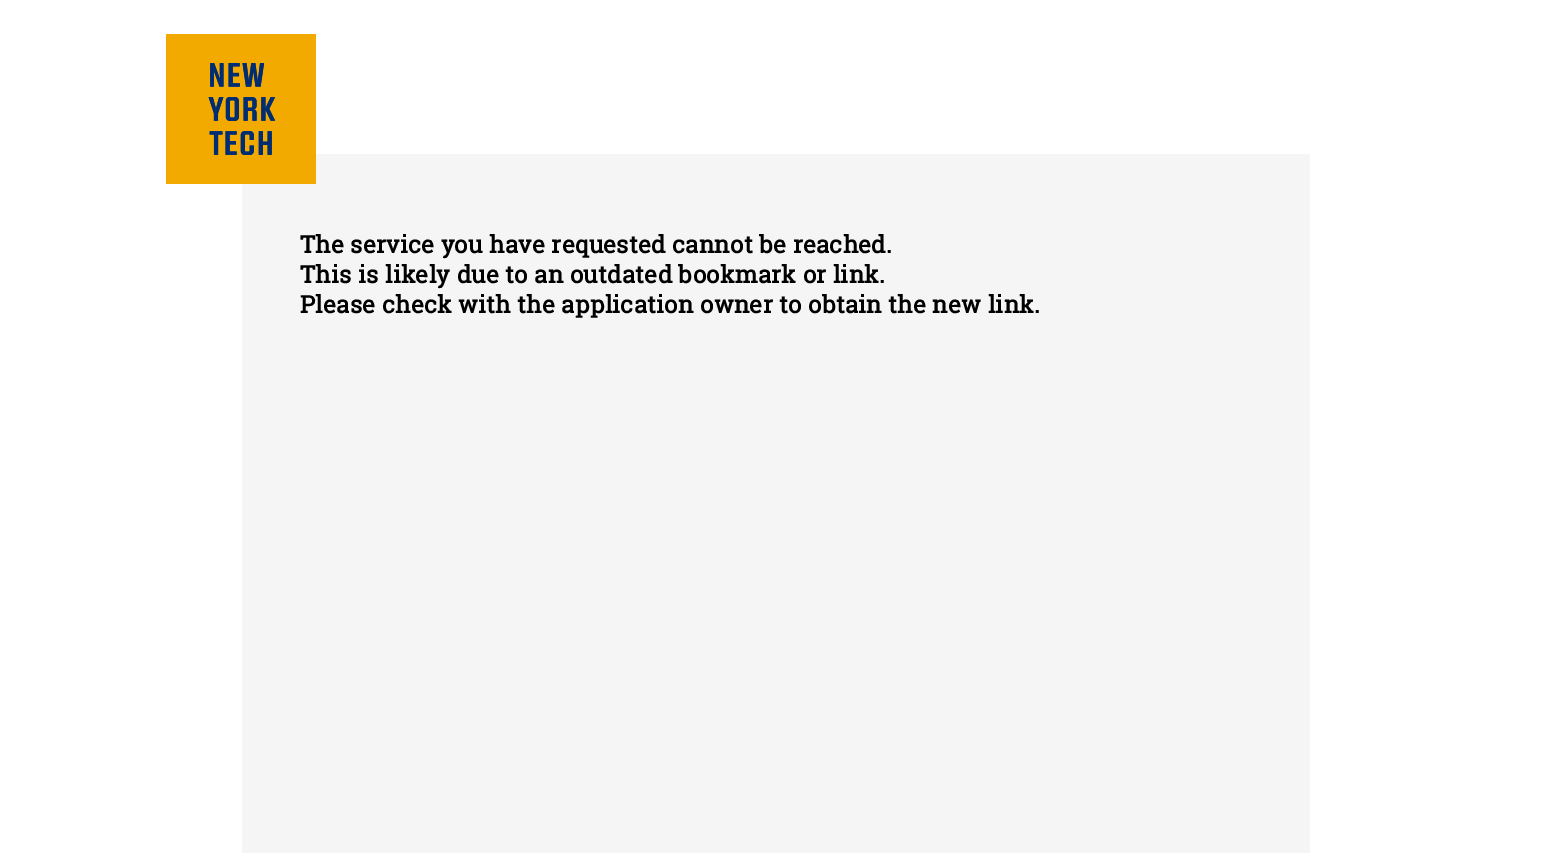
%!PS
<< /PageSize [1552 853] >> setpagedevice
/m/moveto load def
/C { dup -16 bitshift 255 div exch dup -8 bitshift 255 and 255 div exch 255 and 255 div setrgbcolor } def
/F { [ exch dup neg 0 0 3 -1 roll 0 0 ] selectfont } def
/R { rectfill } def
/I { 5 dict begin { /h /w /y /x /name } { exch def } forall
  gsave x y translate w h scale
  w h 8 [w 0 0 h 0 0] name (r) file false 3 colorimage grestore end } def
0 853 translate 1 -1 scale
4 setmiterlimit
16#FFFFFF C
0 0 1552 853 R
16#F5F5F5 C
242 154 1068 699 R
(1.rgb) 166 34 150 150 I
/RobotoSlab-Bold 24 F
16#000000 C
300 253 m .25 0 (The service you have requested cannot be reached.) ashow
300 283 m .25 0 (This is likely due to an outdated bookmark or link.) ashow
300 313 m .25 0 (Please check with the application owner to obtain the new link.) ashow
showpage
